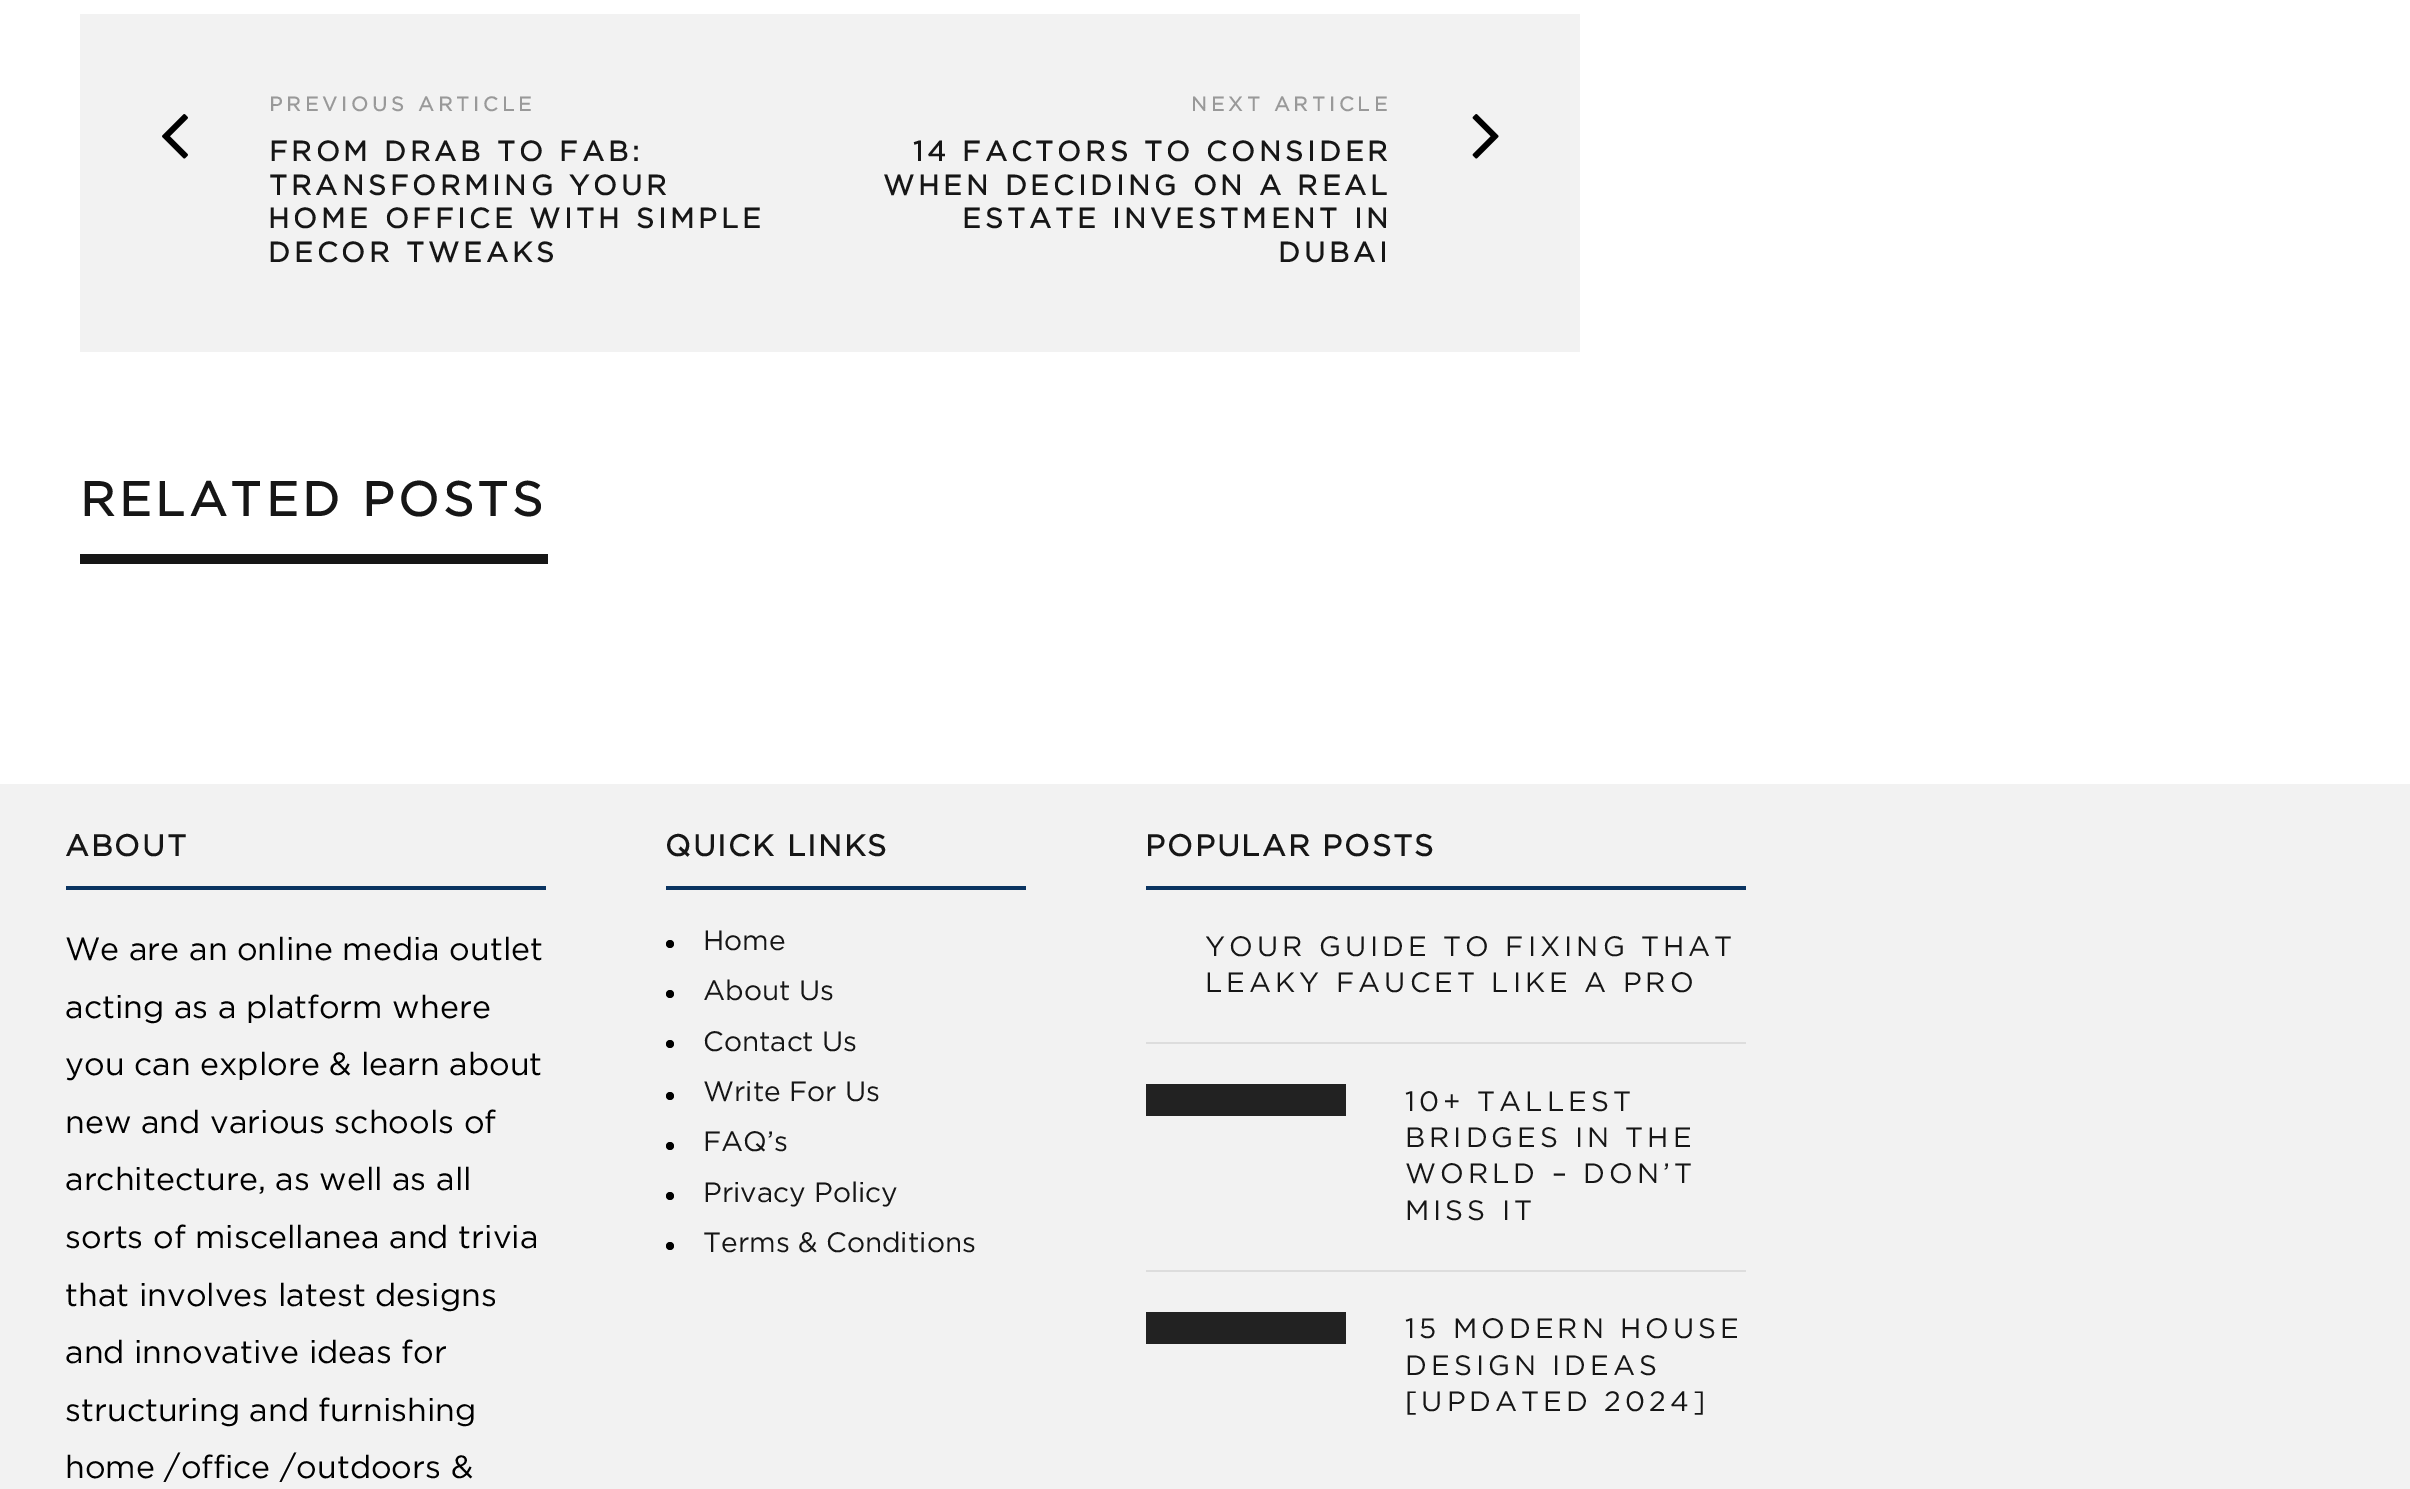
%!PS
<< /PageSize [2410 1489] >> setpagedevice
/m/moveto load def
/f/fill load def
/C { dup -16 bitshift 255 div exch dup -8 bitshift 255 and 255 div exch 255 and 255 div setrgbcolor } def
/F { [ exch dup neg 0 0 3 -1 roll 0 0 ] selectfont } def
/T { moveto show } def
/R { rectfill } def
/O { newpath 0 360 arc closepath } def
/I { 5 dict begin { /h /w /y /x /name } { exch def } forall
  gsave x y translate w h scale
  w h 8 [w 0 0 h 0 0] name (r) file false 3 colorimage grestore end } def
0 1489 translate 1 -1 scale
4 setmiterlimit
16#FFFFFF C
0 0 2410 1489 R
16#F2F2F2 C
80 14 1500 338 R
/Gotham-Bold 20 F
16#999999 C
269 111 m 4 0 (PREVIOUS ARTICLE) ashow
(1.rgb) 162 114 26 45 I
/Gotham-Bold 28 F
16#161616 C
269 161 m 4 0 (FROM DRAB TO FAB:) ashow
269 195 m 4 0 (TRANSFORMING YOUR) ashow
268 228 m 4 0 (HOME OFFICE WITH SIMPLE) ashow
268 262 m 4 0 (DECOR TWEAKS) ashow
/Gotham-Bold 20 F
16#999999 C
1191 111 m 4 0 (NEXT ARTICLE) ashow
(2.rgb) 1472 114 27 45 I
/Gotham-Bold 28 F
16#161616 C
913 161 m 4 0 (14 FACTORS TO CONSIDER) ashow
883 195 m 4 0 (WHEN DECIDING ON A REAL) ashow
962 228 m 4 0 (ESTATE INVESTMENT IN) ashow
1278 262 m 4 0 (DUBAI) ashow
80 554 468 10 R
/Gotham-Bold 48 F
80 516 m 4 0 (RELATED POSTS) ashow
16#F2F2F2 C
0 784 2410 705 R
16#0B3461 C
66 886 480 4 R
/Gotham-Bold 30 F
16#161616 C
65 856 m 2 0 (ABOUT) ashow
/Gotham-Regular 32 F
16#000000 C
(We are an online media outlet) 65 960 T
(acting as a platform where) 65 1018 T
(you can explore & learn about) 65 1075 T
(new and various schools of) 65 1133 T
(architecture, as well as all) 65 1190 T
(sorts of miscellanea and trivia) 65 1248 T
(that involves latest designs) 65 1306 T
(and innovative ideas for) 65 1363 T
(structuring and furnishing) 65 1421 T
(home /office /outdoors &) 65 1478 T
16#0B3461 C
666 886 360 4 R
/Gotham-Bold 30 F
16#161616 C
665 856 m 2 0 (QUICK LINKS) ashow
16#000000 C
670 944 4 O f
/Gotham-Regular 28 F
16#161616 C
(Home) 703 950 T
16#000000 C
670 994 4 O f
16#161616 C
(About Us) 703 1000 T
16#000000 C
670 1044 4 O f
16#161616 C
(Contact Us) 703 1051 T
16#000000 C
670 1096 4 O f
16#161616 C
(Write For Us) 703 1101 T
16#000000 C
670 1146 4 O f
16#161616 C
(FAQ’s) 703 1151 T
16#000000 C
670 1196 4 O f
16#161616 C
(Privacy Policy) 703 1202 T
16#000000 C
670 1246 4 O f
16#161616 C
(Terms & Conditions) 703 1252 T
16#0B3461 C
1146 886 600 4 R
/Gotham-Bold 30 F
16#161616 C
1145 856 m 2 0 (POPULAR POSTS) ashow
16#DDDDDD C
1146 1042 600 2 R
/Gotham-Regular 28 F
16#161616 C
1205 956 m 4 0 (YOUR GUIDE TO FIXING THAT) ashow
1205 992 m 4 0 (LEAKY FAUCET LIKE A PRO) ashow
16#DDDDDD C
1146 1270 600 2 R
16#222222 C
1146 1084 200 32 R
16#161616 C
1405 1111 m 4 0 (10+ TALLEST) ashow
1405 1147 m 4 0 (BRIDGES IN THE) ashow
1405 1183 m 4 0 (WORLD – DON’T) ashow
1405 1220 m 4 0 (MISS IT) ashow
16#222222 C
1146 1312 200 32 R
16#161616 C
1405 1338 m 4 0 (15 MODERN HOUSE) ashow
1405 1375 m 4 0 (DESIGN IDEAS) ashow
1405 1411 m 4 0 ([UPDATED 2024]) ashow
showpage
